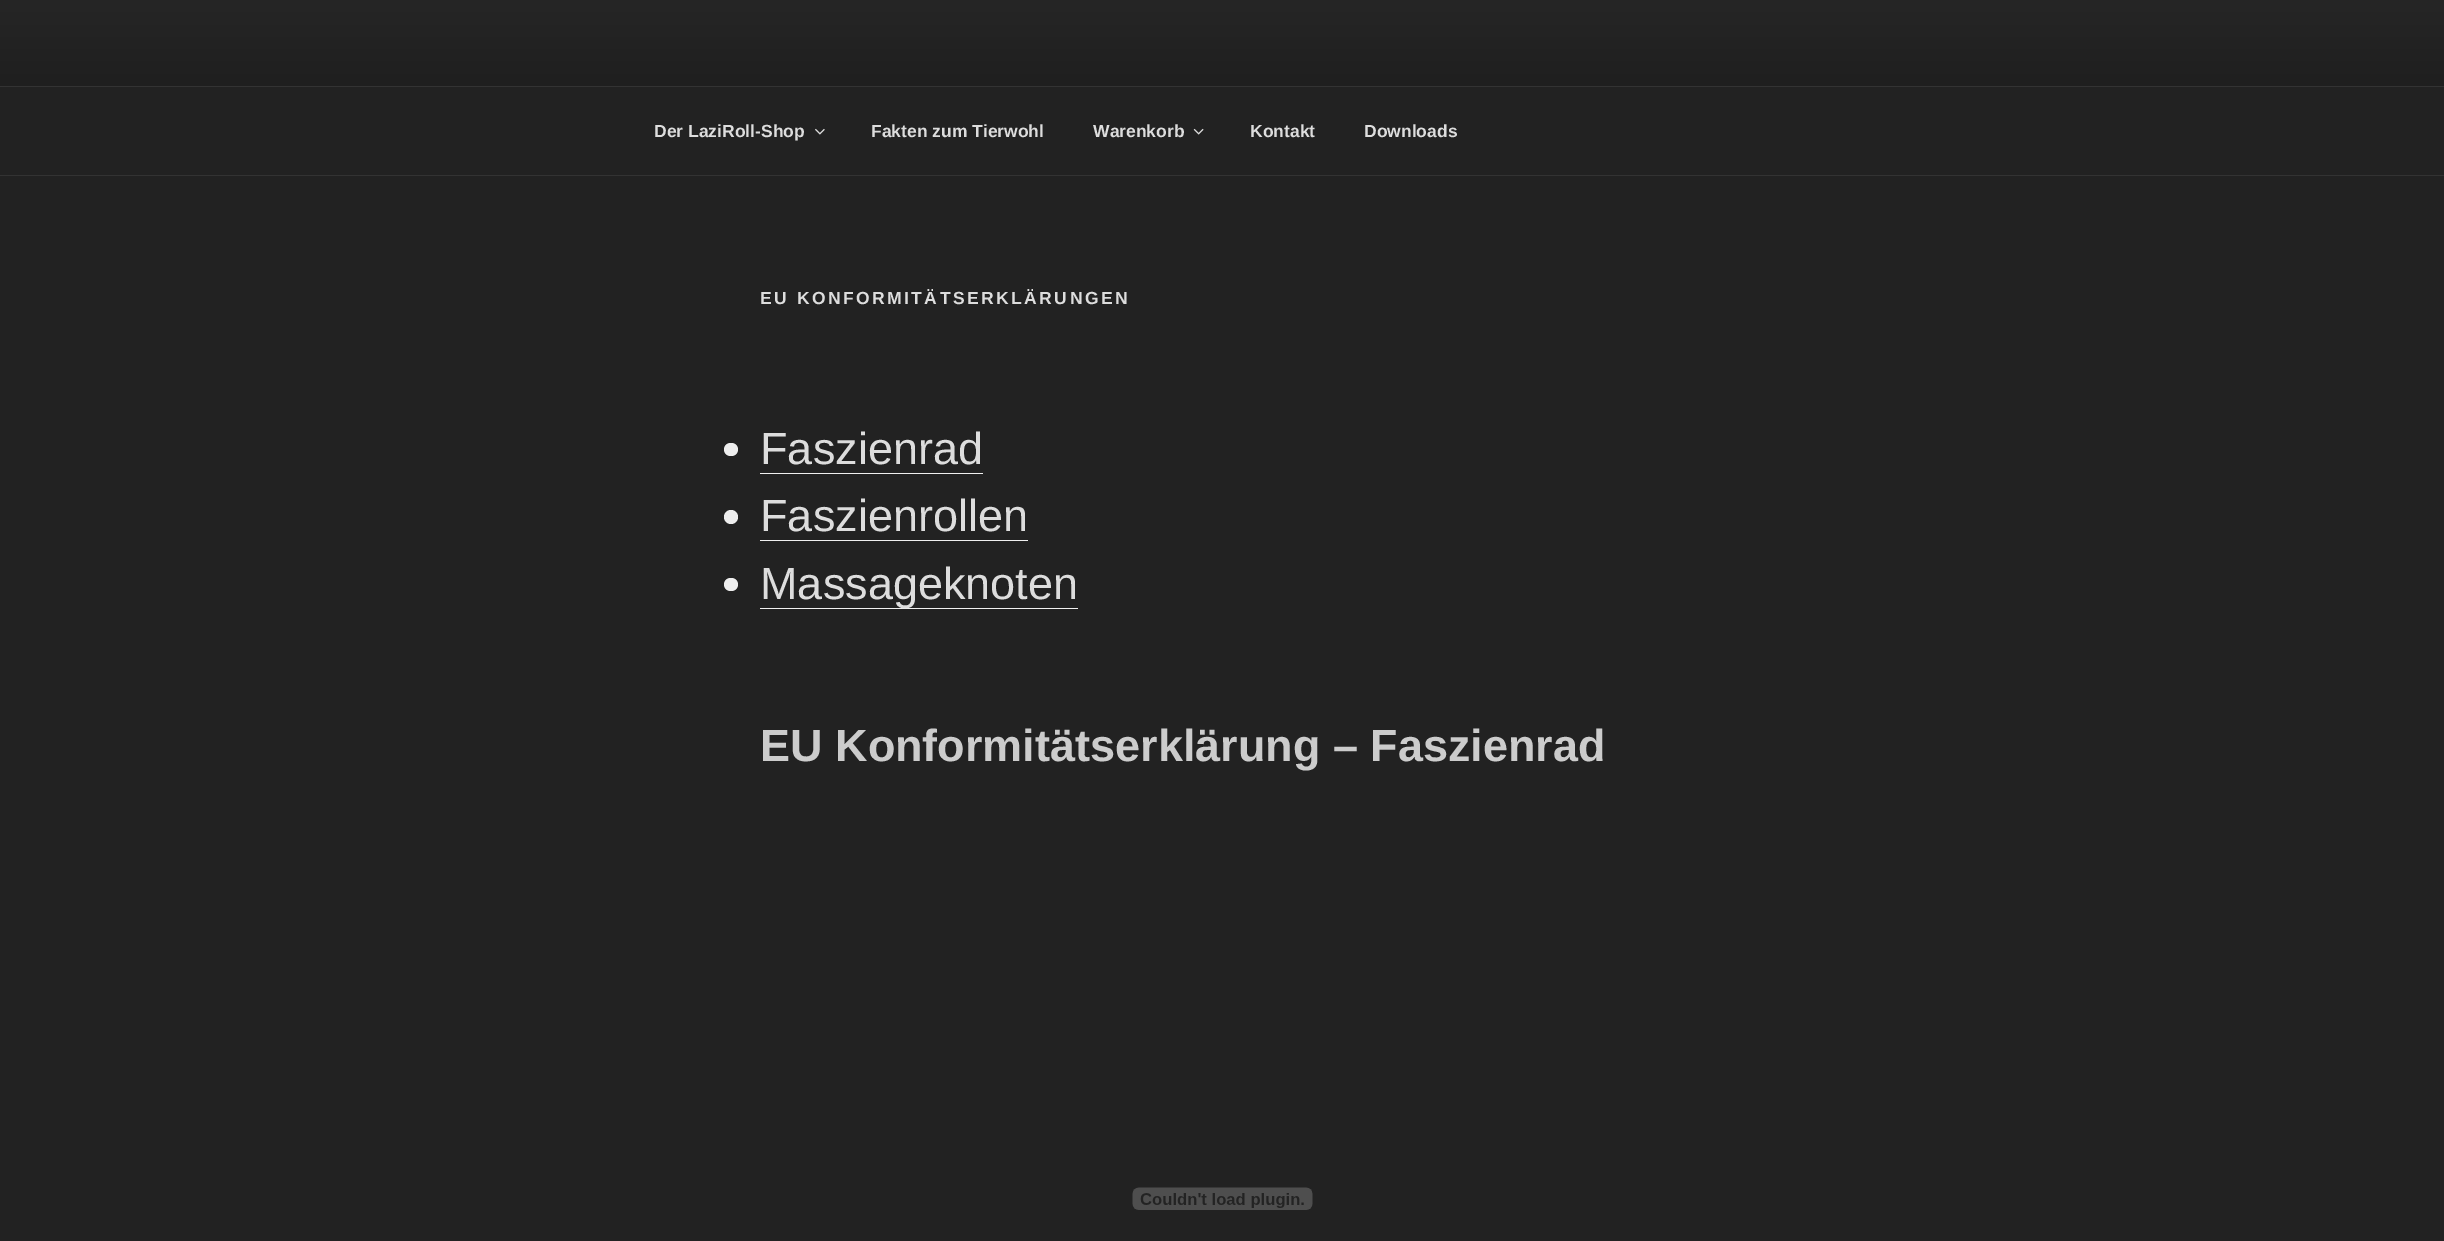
%!PS
<< /PageSize [2444 1241] >> setpagedevice
/m/moveto load def
/l/rlineto load def
/z/closepath load def
/f/fill load def
/q/gsave load def
/Q_/grestore load def
/C { dup -16 bitshift 255 div exch dup -8 bitshift 255 and 255 div exch 255 and 255 div setrgbcolor } def
/F { [ exch dup neg 0 0 3 -1 roll 0 0 ] selectfont } def
/T { moveto show } def
/R { rectfill } def
/O { newpath 0 360 arc closepath } def
/Q { 5 dict begin { /r /h /w /y /x } { exch def } forall
  x r add y moveto x w add y 2 copy h add r arct x w add y h add x 1 index r arct
  x y h add x y r arct x y 2 copy exch w add exch r arct closepath end } def
/I { 5 dict begin { /h /w /y /x /name } { exch def } forall
  gsave x y translate w h scale
  w h 8 [w 0 0 h 0 0] name (r) file false 3 colorimage grestore end } def
0 1241 translate 1 -1 scale
4 setmiterlimit
16#222222 C
0 0 2444 1241 R
q 0 0 m 2444 0 l 0 86 l -2444 0 l z clip newpath
<< /ShadingType 2 /ColorSpace /DeviceRGB /Coords [1223 0 1223 176] /Extend [true true] /Function << /FunctionType 3 /Domain [0 1] /Functions [<< /FunctionType 2 /Domain [0 1] /C0 [.149 .149 .149] /C1 [.106 .106 .106] /N 1 >> << /FunctionType 2 /Domain [0 1] /C0 [.106 .106 .106] /C1 [.106 .106 .106] /N 1 >>] /Bounds [.75] /Encode [0 1 0 1] >> >> shfill Q_
16#333333 C
0 86 2444 1 R
0 175 2444 1 R
/LiberationSans-Bold 17.5 F
16#DDDDDD C
(Der LaziRoll-Shop) 654 137 T
(1.rgb) 815 128 10 7 I
(Fakten zum Tierwohl) 871 137 T
(Warenkorb) 1093 137 T
(2.rgb) 1193 128 11 7 I
(Kontakt) 1250 137 T
(Downloads) 1364 137 T
760 304 m 2.45 0 (EU KONFORMITÄTSERKLÄRUNGEN) ashow
16#EEEEEE C
724 443 14 13 6.5 Q f
/LiberationSans-Regular 45 F
16#DDDDDD C
(Faszienrad) 760 464 T
16#F0F0F0 C
760 473 223 1 R
16#EEEEEE C
731 517 7 O f
16#DDDDDD C
(Faszienrollen) 760 531 T
16#F0F0F0 C
760 540 268 1 R
16#EEEEEE C
724 578 14 13 6.5 Q f
16#F0F0F0 C
760 608 318 1 R
16#DDDDDD C
(Massageknoten) 760 599 T
/LiberationSans-Bold 45 F
16#CCCCCC C
(EU Konformitätserklärung – Faszienrad) 760 761 T
(3.rgb) 1132 1187 181 23 I
showpage
